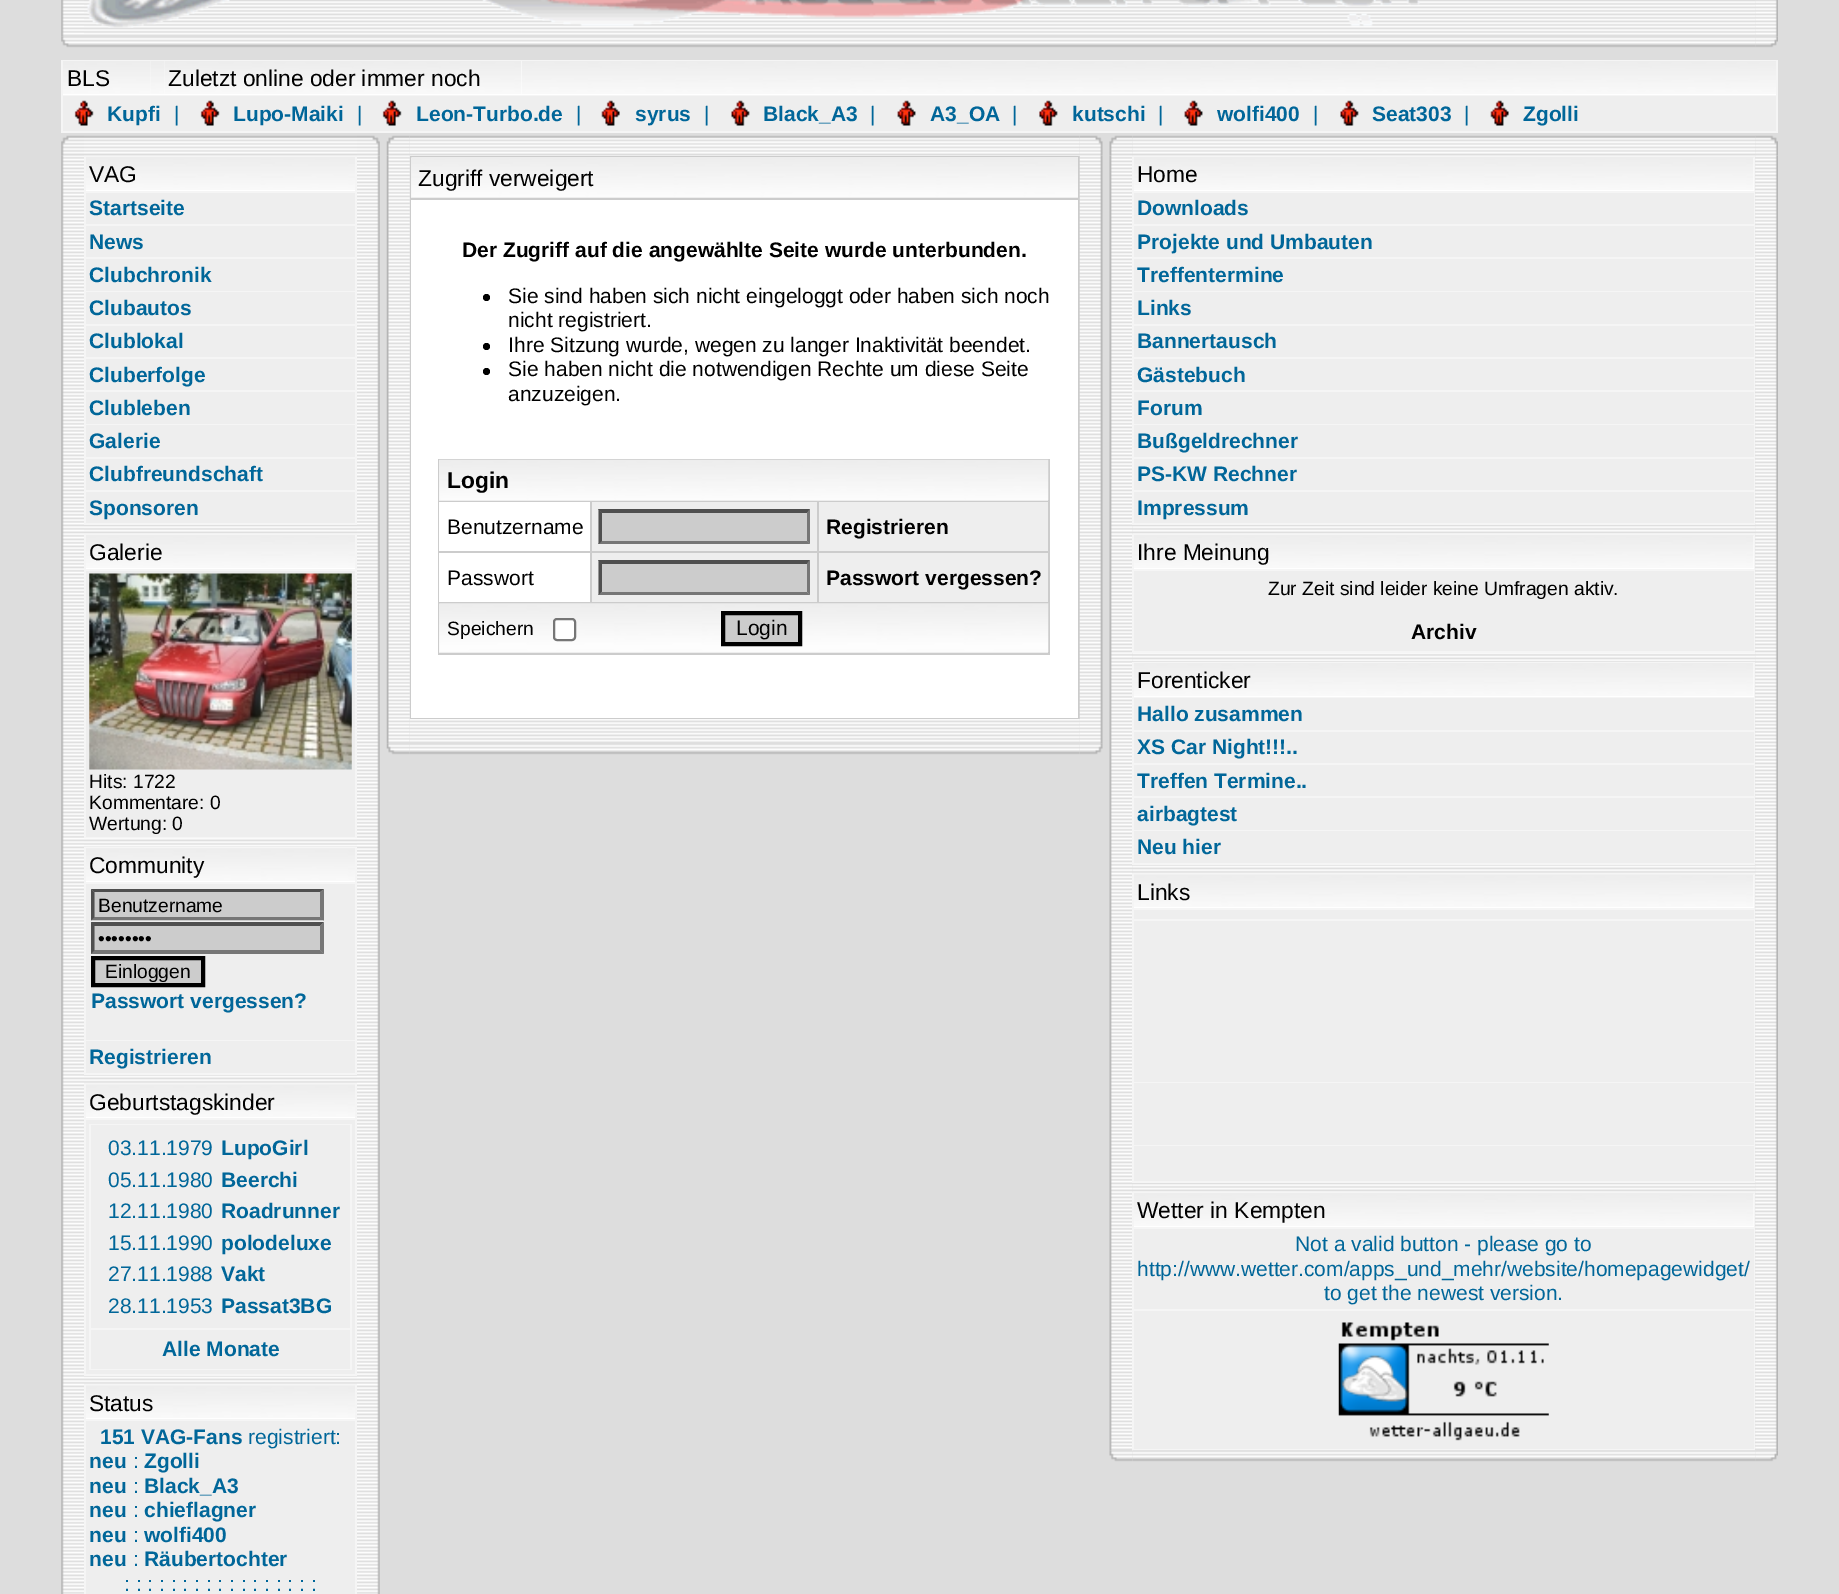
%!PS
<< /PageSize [1839 1594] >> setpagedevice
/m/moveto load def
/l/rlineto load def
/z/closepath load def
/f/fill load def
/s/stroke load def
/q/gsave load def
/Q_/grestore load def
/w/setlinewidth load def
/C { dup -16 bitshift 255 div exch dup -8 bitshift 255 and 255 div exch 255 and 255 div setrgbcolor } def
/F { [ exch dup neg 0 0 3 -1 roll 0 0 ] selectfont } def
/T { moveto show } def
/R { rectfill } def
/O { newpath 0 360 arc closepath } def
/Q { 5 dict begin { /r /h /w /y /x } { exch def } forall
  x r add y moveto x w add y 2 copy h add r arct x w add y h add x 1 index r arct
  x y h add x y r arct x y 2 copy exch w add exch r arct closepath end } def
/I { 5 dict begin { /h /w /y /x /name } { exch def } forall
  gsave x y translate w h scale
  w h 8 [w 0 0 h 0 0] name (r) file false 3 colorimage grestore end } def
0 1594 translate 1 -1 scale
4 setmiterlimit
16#DDDDDD C
0 0 1839 1594 R
(1.rgb) 61 0 23 37 I
(2.rgb) 84 1 1672 36 I
(3.rgb) 87 0 1333 28 I
(4.rgb) 1755 0 23 37 I
(5.rgb) 61 36 23 12 I
(6.rgb) 84 36 1672 12 I
(7.rgb) 1755 36 23 12 I
16#F5F5F5 C
61 60 1717 73 R
16#FFFFFF C
522 94 1254 1 R
(8.rgb) 522 61 1254 33 I
63 61 459 34 R
(9.rgb) 63 61 88 33 I
/LiberationSans-Regular 22.75 F
16#000000 C
(BLS) 67 86 T
(10.rgb) 150 61 15 33 I
(11.rgb) 164 61 358 33 I
(Zuletzt online oder immer noch) 168 86 T
16#EEEEEE C
63 96 1713 35 R
(12.rgb) 74 100 20 26 I
/LiberationSans-Bold 21 F
16#006699 C
(Kupfi) 107 121 T
/LiberationSans-Regular 21 F
(|) 174 121 T
(13.rgb) 200 100 20 26 I
/LiberationSans-Bold 21 F
(Lupo-Maiki) 233 121 T
/LiberationSans-Regular 21 F
(|) 357 121 T
(13.rgb) 382 100 20 26 I
/LiberationSans-Bold 21 F
(Leon-Turbo.de) 416 121 T
/LiberationSans-Regular 21 F
(|) 576 121 T
(14.rgb) 601 100 19 26 I
/LiberationSans-Bold 21 F
(syrus) 635 121 T
/LiberationSans-Regular 21 F
(|) 704 121 T
(15.rgb) 731 100 19 26 I
/LiberationSans-Bold 21 F
(Black_A3) 763 121 T
/LiberationSans-Regular 21 F
(|) 870 121 T
(16.rgb) 897 100 19 26 I
/LiberationSans-Bold 21 F
(A3_OA) 930 121 T
/LiberationSans-Regular 21 F
(|) 1012 121 T
(17.rgb) 1039 100 19 26 I
/LiberationSans-Bold 21 F
(kutschi) 1072 121 T
/LiberationSans-Regular 21 F
(|) 1158 121 T
(16.rgb) 1184 100 19 26 I
/LiberationSans-Bold 21 F
(wolfi400) 1217 121 T
/LiberationSans-Regular 21 F
(|) 1313 121 T
(15.rgb) 1340 100 19 26 I
/LiberationSans-Bold 21 F
(Seat303) 1372 121 T
/LiberationSans-Regular 21 F
(|) 1464 121 T
(14.rgb) 1490 100 19 26 I
/LiberationSans-Bold 21 F
(Zgolli) 1523 121 T
(21.rgb) 61 155 23 1439 I
(18.rgb) 61 135 23 21 I
(19.rgb) 84 135 273 19 I
(20.rgb) 357 135 23 20 I
(22.rgb) 84 155 273 1229 I
16#F5F5F5 C
84 156 273 369 R
16#FFFFFF C
86 190 269 1 R
(23.rgb) 86 157 269 33 I
/LiberationSans-Regular 22.75 F
16#000000 C
(VAG) 89 182 T
16#EEEEEE C
86 193 269 31 R
/LiberationSans-Bold 21 F
16#006699 C
(Startseite) 89 215 T
16#EEEEEE C
86 226 269 31 R
16#006699 C
(News) 89 249 T
16#EEEEEE C
86 259 269 32 R
16#006699 C
(Clubchronik) 89 282 T
16#EEEEEE C
86 292 269 32 R
16#006699 C
(Clubautos) 89 315 T
16#EEEEEE C
86 326 269 31 R
16#006699 C
(Clublokal) 89 348 T
16#EEEEEE C
86 359 269 31 R
16#006699 C
(Cluberfolge) 89 382 T
16#EEEEEE C
86 392 269 32 R
16#006699 C
(Clubleben) 89 415 T
16#EEEEEE C
86 425 269 32 R
16#006699 C
(Galerie) 89 448 T
16#EEEEEE C
86 459 269 31 R
16#006699 C
(Clubfreundschaft) 89 481 T
16#EEEEEE C
86 492 269 31 R
16#006699 C
(Sponsoren) 89 515 T
16#F5F5F5 C
84 534 273 304 R
16#FFFFFF C
86 568 269 1 R
(23.rgb) 86 535 269 33 I
/LiberationSans-Regular 22.75 F
16#000000 C
(Galerie) 89 560 T
16#EEEEEE C
86 571 269 266 R
(24.rgb) 89 573 263 197 I
/LiberationSans-Regular 19.25 F
16#000000 C
(Hits: 1722) 89 788 T
(Kommentare: 0) 89 809 T
(Wertung: 0) 89 830 T
16#F5F5F5 C
84 847 273 228 R
16#FFFFFF C
86 881 269 1 R
(25.rgb) 86 848 269 33 I
/LiberationSans-Regular 22.75 F
16#000000 C
(Community) 89 873 T
16#EEEEEE C
86 884 269 156 R
16#CCCCCC C
91 889 233 32 R
16#4F4F4F C
91 889 m 233 0 l -4 3 l -226 0 l z f
16#767676 C
324 889 m 0 31.5 l -4 -3.5 l 0 -24.5 l z f
324 920 m -233 0 l 3 -3 l 226 0 l z f
16#4F4F4F C
91 920.5 m 0 -31.5 l 3.5 3.5 l 0 24.5 l z f
/LiberationSans-Regular 19.25 F
16#000000 C
(Benutzername) 98 912 T
16#CCCCCC C
91 922 233 32 R
16#4F4F4F C
91 922 m 233 0 l -4 4 l -226 0 l z f
16#767676 C
324 922 m 0 32 l -4 -4 l 0 -24 l z f
324 954 m -233 0 l 3 -4 l 226 0 l z f
16#4F4F4F C
91 954 m 0 -32 l 3.5 4 l 0 24 l z f
16#000000 C
(••••••••) 98 945 T
16#CCCCCC C
93 958 m 110 0 l 0 27 l -110 0 l z q f Q_
16#000000 C
4 w
s
(Einloggen) 105 978 T
/LiberationSans-Bold 21 F
16#006699 C
(Passwort vergessen?) 91 1008 T
16#EEEEEE C
86 1041 269 32 R
16#006699 C
(Registrieren) 89 1064 T
16#F5F5F5 C
84 1083 273 293 R
16#FFFFFF C
86 1117 269 1 R
(26.rgb) 86 1084 269 33 I
/LiberationSans-Regular 22.75 F
16#000000 C
(Geburtstagskinder) 89 1110 T
16#EEEEEE C
86 1120 269 254 R
16#F5F5F5 C
89 1124 263 246 R
16#EEEEEE C
91 1125 259 203 R
/LiberationSans-Regular 21 F
16#006699 C
(03.11.1979) 108 1155 T
/LiberationSans-Bold 21 F
(LupoGirl) 221 1155 T
/LiberationSans-Regular 21 F
(05.11.1980) 108 1187 T
/LiberationSans-Bold 21 F
(Beerchi) 221 1187 T
/LiberationSans-Regular 21 F
(12.11.1980) 108 1218 T
/LiberationSans-Bold 21 F
(Roadrunner) 221 1218 T
/LiberationSans-Regular 21 F
(15.11.1990) 108 1250 T
/LiberationSans-Bold 21 F
(polodeluxe) 221 1250 T
/LiberationSans-Regular 21 F
(27.11.1988) 108 1281 T
/LiberationSans-Bold 21 F
(Vakt) 221 1281 T
/LiberationSans-Regular 21 F
(28.11.1953) 108 1313 T
/LiberationSans-Bold 21 F
(Passat3BG) 221 1313 T
16#EEEEEE C
91 1330 259 39 R
16#006699 C
(Alle Monate) 162 1356 T
16#F5F5F5 C
84 1384 273 210 R
16#FFFFFF C
86 1418 269 1 R
(27.rgb) 86 1385 269 33 I
/LiberationSans-Regular 22.75 F
16#000000 C
(Status) 89 1411 T
16#EEEEEE C
86 1421 269 173 R
/LiberationSans-Bold 21 F
16#006699 C
(151 VAG-Fans) 100 1444 T
/LiberationSans-Regular 21 F
(registriert:) 248 1444 T
/LiberationSans-Bold 21 F
(neu) 89 1468 T
/LiberationSans-Regular 21 F
(:) 133 1468 T
/LiberationSans-Bold 21 F
(Zgolli) 144 1468 T
(neu) 89 1493 T
/LiberationSans-Regular 21 F
(:) 133 1493 T
/LiberationSans-Bold 21 F
(Black_A3) 144 1493 T
(neu) 89 1517 T
/LiberationSans-Regular 21 F
(:) 133 1517 T
/LiberationSans-Bold 21 F
(chieflagner) 144 1517 T
(neu) 89 1542 T
/LiberationSans-Regular 21 F
(:) 133 1542 T
/LiberationSans-Bold 21 F
(wolfi400) 144 1542 T
(neu) 89 1566 T
/LiberationSans-Regular 21 F
(:) 133 1566 T
/LiberationSans-Bold 21 F
(Räubertochter) 144 1566 T
/LiberationSans-Regular 21 F
(: : : : : : : : : : : : : : : : :) 124 1591 T
(28.rgb) 357 155 23 1439 I
(30.rgb) 409 135 671 19 I
(29.rgb) 386 135 24 20 I
(31.rgb) 1080 135 23 20 I
(32.rgb) 386 155 24 589 I
(33.rgb) 409 155 671 589 I
16#CCCCCC C
410 156 670 563 R
16#EEEEEE C
411 158 667 40 R
(34.rgb) 411 157 667 40 I
/LiberationSans-Regular 22.75 F
16#000000 C
(Zugriff verweigert) 418 186 T
16#FFFFFF C
411 200 667 518 R
/LiberationSans-Bold 21 F
16#000000 C
(Der Zugriff auf die angewählte Seite wurde unterbunden.) 462 257 T
486.5 297.5 3.5 O f
/LiberationSans-Regular 21 F
(Sie sind haben sich nicht eingeloggt oder haben sich noch) 508 303 T
(nicht registriert.) 508 327 T
486.5 346.5 3.5 O f
(Ihre Sitzung wurde, wegen zu langer Inaktivität beendet.) 508 352 T
486.5 371.5 3.5 O f
(Sie haben nicht die notwendigen Rechte um diese Seite) 508 376 T
(anzuzeigen.) 508 401 T
16#CCCCCC C
438 459 612 196 R
16#EEEEEE C
439 460 609 41 R
(35.rgb) 439 459 610 41 I
/LiberationSans-Bold 22.75 F
16#000000 C
(Login) 447 488 T
16#FFFFFF C
439 502 151 49 R
/LiberationSans-Regular 21 F
16#000000 C
(Benutzername) 447 534 T
16#EEEEEE C
592 502 225 49 R
16#CCCCCC C
599 509 211 35 R
16#4F4F4F C
598 509 m 212 0 l -3 4 l -205 0 l z f
16#767676 C
810 509 m 0 35 l -3 -3 l 0 -28 l z f
810 544 m -212 0 l 4 -3 l 205 0 l z f
16#4F4F4F C
598.5 544 m 0 -35 l 3.5 4 l 0 28 l z f
16#EEEEEE C
819 502 229 49 R
/LiberationSans-Bold 21 F
16#000000 C
(Registrieren) 826 534 T
16#FFFFFF C
439 553 151 49 R
/LiberationSans-Regular 21 F
16#000000 C
(Passwort) 447 585 T
16#EEEEEE C
592 553 225 49 R
16#CCCCCC C
599 560 211 35 R
16#4F4F4F C
598 560 m 212 0 l -3 4 l -205 0 l z f
16#767676 C
810 560 m 0 35 l -3 -3.5 l 0 -28 l z f
810 595 m -212 0 l 4 -3 l 205 0 l z f
16#4F4F4F C
598.5 595 m 0 -35 l 3.5 3.5 l 0 28 l z f
16#EEEEEE C
819 553 229 49 R
/LiberationSans-Bold 21 F
16#000000 C
(Passwort vergessen?) 826 585 T
16#EEEEEE C
439 604 609 49 R
(36.rgb) 439 603 610 49 I
/LiberationSans-Regular 19.25 F
16#000000 C
(Speichern) 447 635 T
16#FFFFFF C
554 619 21 21 3 Q q f Q_
16#767676 C
2 w
s
16#CCCCCC C
723 613 m 77 0 l 0 31 l -77 0 l z q f Q_
16#000000 C
4 w
s
/LiberationSans-Regular 21 F
(Login) 736 635 T
(37.rgb) 1079 155 24 589 I
(39.rgb) 409 743 671 12 I
(38.rgb) 386 743 24 12 I
(40.rgb) 1080 743 23 12 I
(41.rgb) 1109 135 23 20 I
(42.rgb) 1132 135 624 19 I
(43.rgb) 1755 135 23 20 I
(44.rgb) 1109 155 24 1296 I
(45.rgb) 1132 155 624 1296 I
16#F5F5F5 C
1132 156 623 369 R
16#FFFFFF C
1134 158 620 33 R
(46.rgb) 1134 157 620 33 I
/LiberationSans-Regular 22.75 F
16#000000 C
(Home) 1137 182 T
16#EEEEEE C
1134 193 620 31 R
/LiberationSans-Bold 21 F
16#006699 C
(Downloads) 1137 215 T
16#EEEEEE C
1134 226 620 31 R
16#006699 C
(Projekte und Umbauten) 1137 249 T
16#EEEEEE C
1134 259 620 32 R
16#006699 C
(Treffentermine) 1137 282 T
16#EEEEEE C
1134 292 620 32 R
16#006699 C
(Links) 1137 315 T
16#EEEEEE C
1134 326 620 31 R
16#006699 C
(Bannertausch) 1137 348 T
16#EEEEEE C
1134 359 620 31 R
16#006699 C
(Gästebuch) 1137 382 T
16#EEEEEE C
1134 392 620 32 R
16#006699 C
(Forum) 1137 415 T
16#EEEEEE C
1134 425 620 32 R
16#006699 C
(Bußgeldrechner) 1137 448 T
16#EEEEEE C
1134 459 620 31 R
16#006699 C
(PS-KW Rechner) 1137 481 T
16#EEEEEE C
1134 492 620 31 R
16#006699 C
(Impressum) 1137 515 T
16#F5F5F5 C
1132 534 623 119 R
16#FFFFFF C
1134 536 620 33 R
(46.rgb) 1134 535 620 33 I
/LiberationSans-Regular 22.75 F
16#000000 C
(Ihre Meinung) 1137 560 T
16#EEEEEE C
1134 571 620 80 R
/LiberationSans-Regular 19.25 F
16#000000 C
(Zur Zeit sind leider keine Umfragen aktiv.) 1268 595 T
/LiberationSans-Bold 21 F
(Archiv) 1411 639 T
16#F5F5F5 C
1132 662 623 203 R
16#FFFFFF C
1134 663 620 34 R
(47.rgb) 1134 663 620 33 I
/LiberationSans-Regular 22.75 F
16#000000 C
(Forenticker) 1137 688 T
16#EEEEEE C
1134 698 620 32 R
/LiberationSans-Bold 21 F
16#006699 C
(Hallo zusammen) 1137 721 T
16#EEEEEE C
1134 732 620 31 R
16#006699 C
(XS Car Night!!!..) 1137 754 T
16#EEEEEE C
1134 765 620 31 R
16#006699 C
(Treffen Termine..) 1137 788 T
16#EEEEEE C
1134 798 620 32 R
16#006699 C
(airbagtest) 1137 821 T
16#EEEEEE C
1134 831 620 32 R
16#006699 C
(Neu hier) 1137 854 T
16#F5F5F5 C
1132 873 623 310 R
16#FFFFFF C
1134 875 620 33 R
(48.rgb) 1134 874 620 33 I
/LiberationSans-Regular 22.75 F
16#000000 C
(Links) 1137 900 T
16#EEEEEE C
1134 910 620 9 R
1134 921 620 161 R
1134 1083 620 62 R
1134 1146 620 35 R
16#F5F5F5 C
1132 1192 623 259 R
16#FFFFFF C
1134 1194 620 33 R
(46.rgb) 1134 1193 620 33 I
16#000000 C
(Wetter in Kempten) 1137 1218 T
16#EEEEEE C
1134 1229 620 80 R
/LiberationSans-Regular 21 F
16#006699 C
(Not a valid button - please go to) 1295 1251 T
(http://www.wetter.com/apps_und_mehr/website/homepagewidget/) 1137 1276 T
(to get the newest version.) 1324 1300 T
16#EEEEEE C
1134 1311 620 138 R
(49.rgb) 1338 1322 211 119 I
(50.rgb) 1755 155 23 1296 I
(51.rgb) 1109 1450 23 12 I
(52.rgb) 1132 1450 624 12 I
(7.rgb) 1755 1450 23 12 I
showpage
